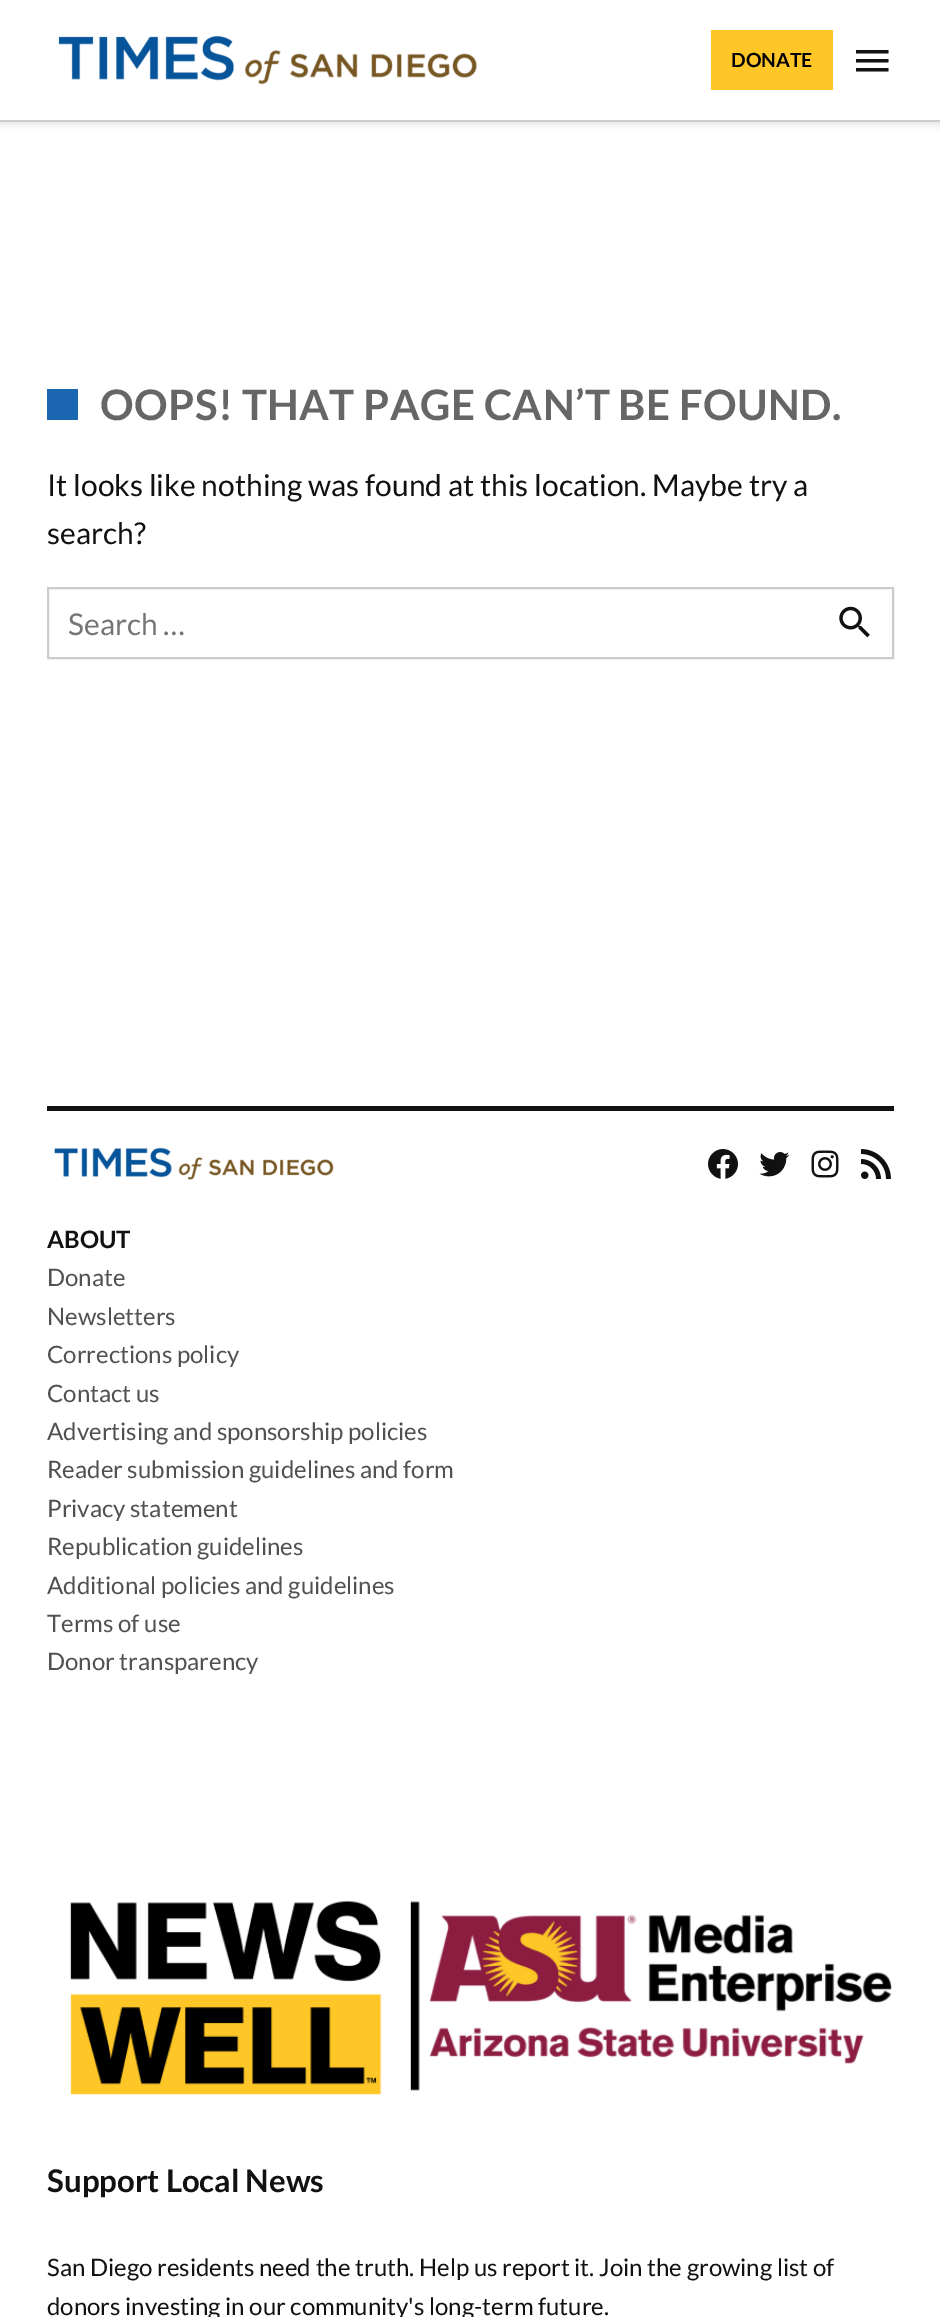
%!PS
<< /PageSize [940 2317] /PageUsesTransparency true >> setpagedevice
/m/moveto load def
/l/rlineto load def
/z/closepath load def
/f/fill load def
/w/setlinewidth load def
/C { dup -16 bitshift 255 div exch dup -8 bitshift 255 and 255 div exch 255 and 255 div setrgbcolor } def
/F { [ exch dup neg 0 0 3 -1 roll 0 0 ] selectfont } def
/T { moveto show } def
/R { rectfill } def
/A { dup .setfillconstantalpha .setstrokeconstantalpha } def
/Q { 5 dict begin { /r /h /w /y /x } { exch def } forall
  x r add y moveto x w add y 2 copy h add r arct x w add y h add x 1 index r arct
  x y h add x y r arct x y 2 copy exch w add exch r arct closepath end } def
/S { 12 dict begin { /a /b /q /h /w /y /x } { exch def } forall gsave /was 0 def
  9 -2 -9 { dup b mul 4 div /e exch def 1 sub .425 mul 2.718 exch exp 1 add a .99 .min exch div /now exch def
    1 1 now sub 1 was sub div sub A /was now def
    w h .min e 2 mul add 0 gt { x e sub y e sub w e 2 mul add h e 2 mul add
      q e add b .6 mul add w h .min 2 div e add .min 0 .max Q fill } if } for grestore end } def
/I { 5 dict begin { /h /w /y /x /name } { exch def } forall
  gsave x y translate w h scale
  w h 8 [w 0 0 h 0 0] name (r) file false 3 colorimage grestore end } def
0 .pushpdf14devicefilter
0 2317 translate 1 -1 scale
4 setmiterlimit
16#FFFFFF C
0 0 940 2317 R
16#000000 C
0 3 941 122 0 4 .1 S
16#FFFFFF C
0 0 940 120 R
16#CCCCCC C
0 120 940 2 R
(1.rgb) 58 36 419 49 I
16#FFC627 C
711 30 122 60 R
/Lato-Bold 19.5 F
16#000000 C
(DONATE) 731 67 T
16#111111 C
856 71.5 m 32.5 0 l 0 -3.5 l -32.5 0 l z 856 62.5 m 32.5 0 l 0 -3.5 l -32.5 0 l z 856 50 m 0 3.5 l 32.5 0 l 0 -3.5 l z f
16#1B66B1 C
47 389 31 31 R
/Lato-Bold 42 F
16#666666 C
100 420 m .4 0 (OOPS! THAT PAGE CAN’T BE FOUND.) ashow
/Lato-Regular 30 F
16#111111 C
(It looks like nothing was found at this location. Maybe try a) 47 496 T
(search?) 47 544 T
16#CCCCCC C
2 w
48 588 845 70 rectstroke
16#757575 C
(Search …) 68 635 T
(2.rgb) 839 606 31 32 I
16#111111 C
47 1106 847 5 R
(3.rgb) 54 1147 280 33 I
(4.rgb) 708 1149 30 30 I
(5.rgb) 759 1152 31 25 I
(6.rgb) 811 1150 28 28 I
(7.rgb) 861 1149 30 30 I
/Lato-Bold 24 F
(ABOUT) 47 1248 T
/Lato-Regular 24 F
16#515151 C
(Donate) 47 1286 T
(Newsletters) 47 1325 T
(Corrections policy) 47 1363 T
(Contact us) 47 1402 T
(Advertising and sponsorship policies) 47 1440 T
(Reader submission guidelines and form) 47 1478 T
(Privacy statement) 47 1517 T
(Republication guidelines) 47 1555 T
(Additional policies and guidelines) 47 1594 T
(Terms of use) 47 1632 T
(Donor transparency) 47 1670 T
(8.rgb) 70 1900 822 195 I
/Lato-Bold 31.25 F
16#111111 C
(Support Local News) 47 2192 T
/Lato-Regular 24 F
(San Diego residents need the truth. Help us report it. Join the growing list of) 47 2276 T
(donors investing in our community's long-term future.) 47 2315 T
.poppdf14devicefilter showpage
